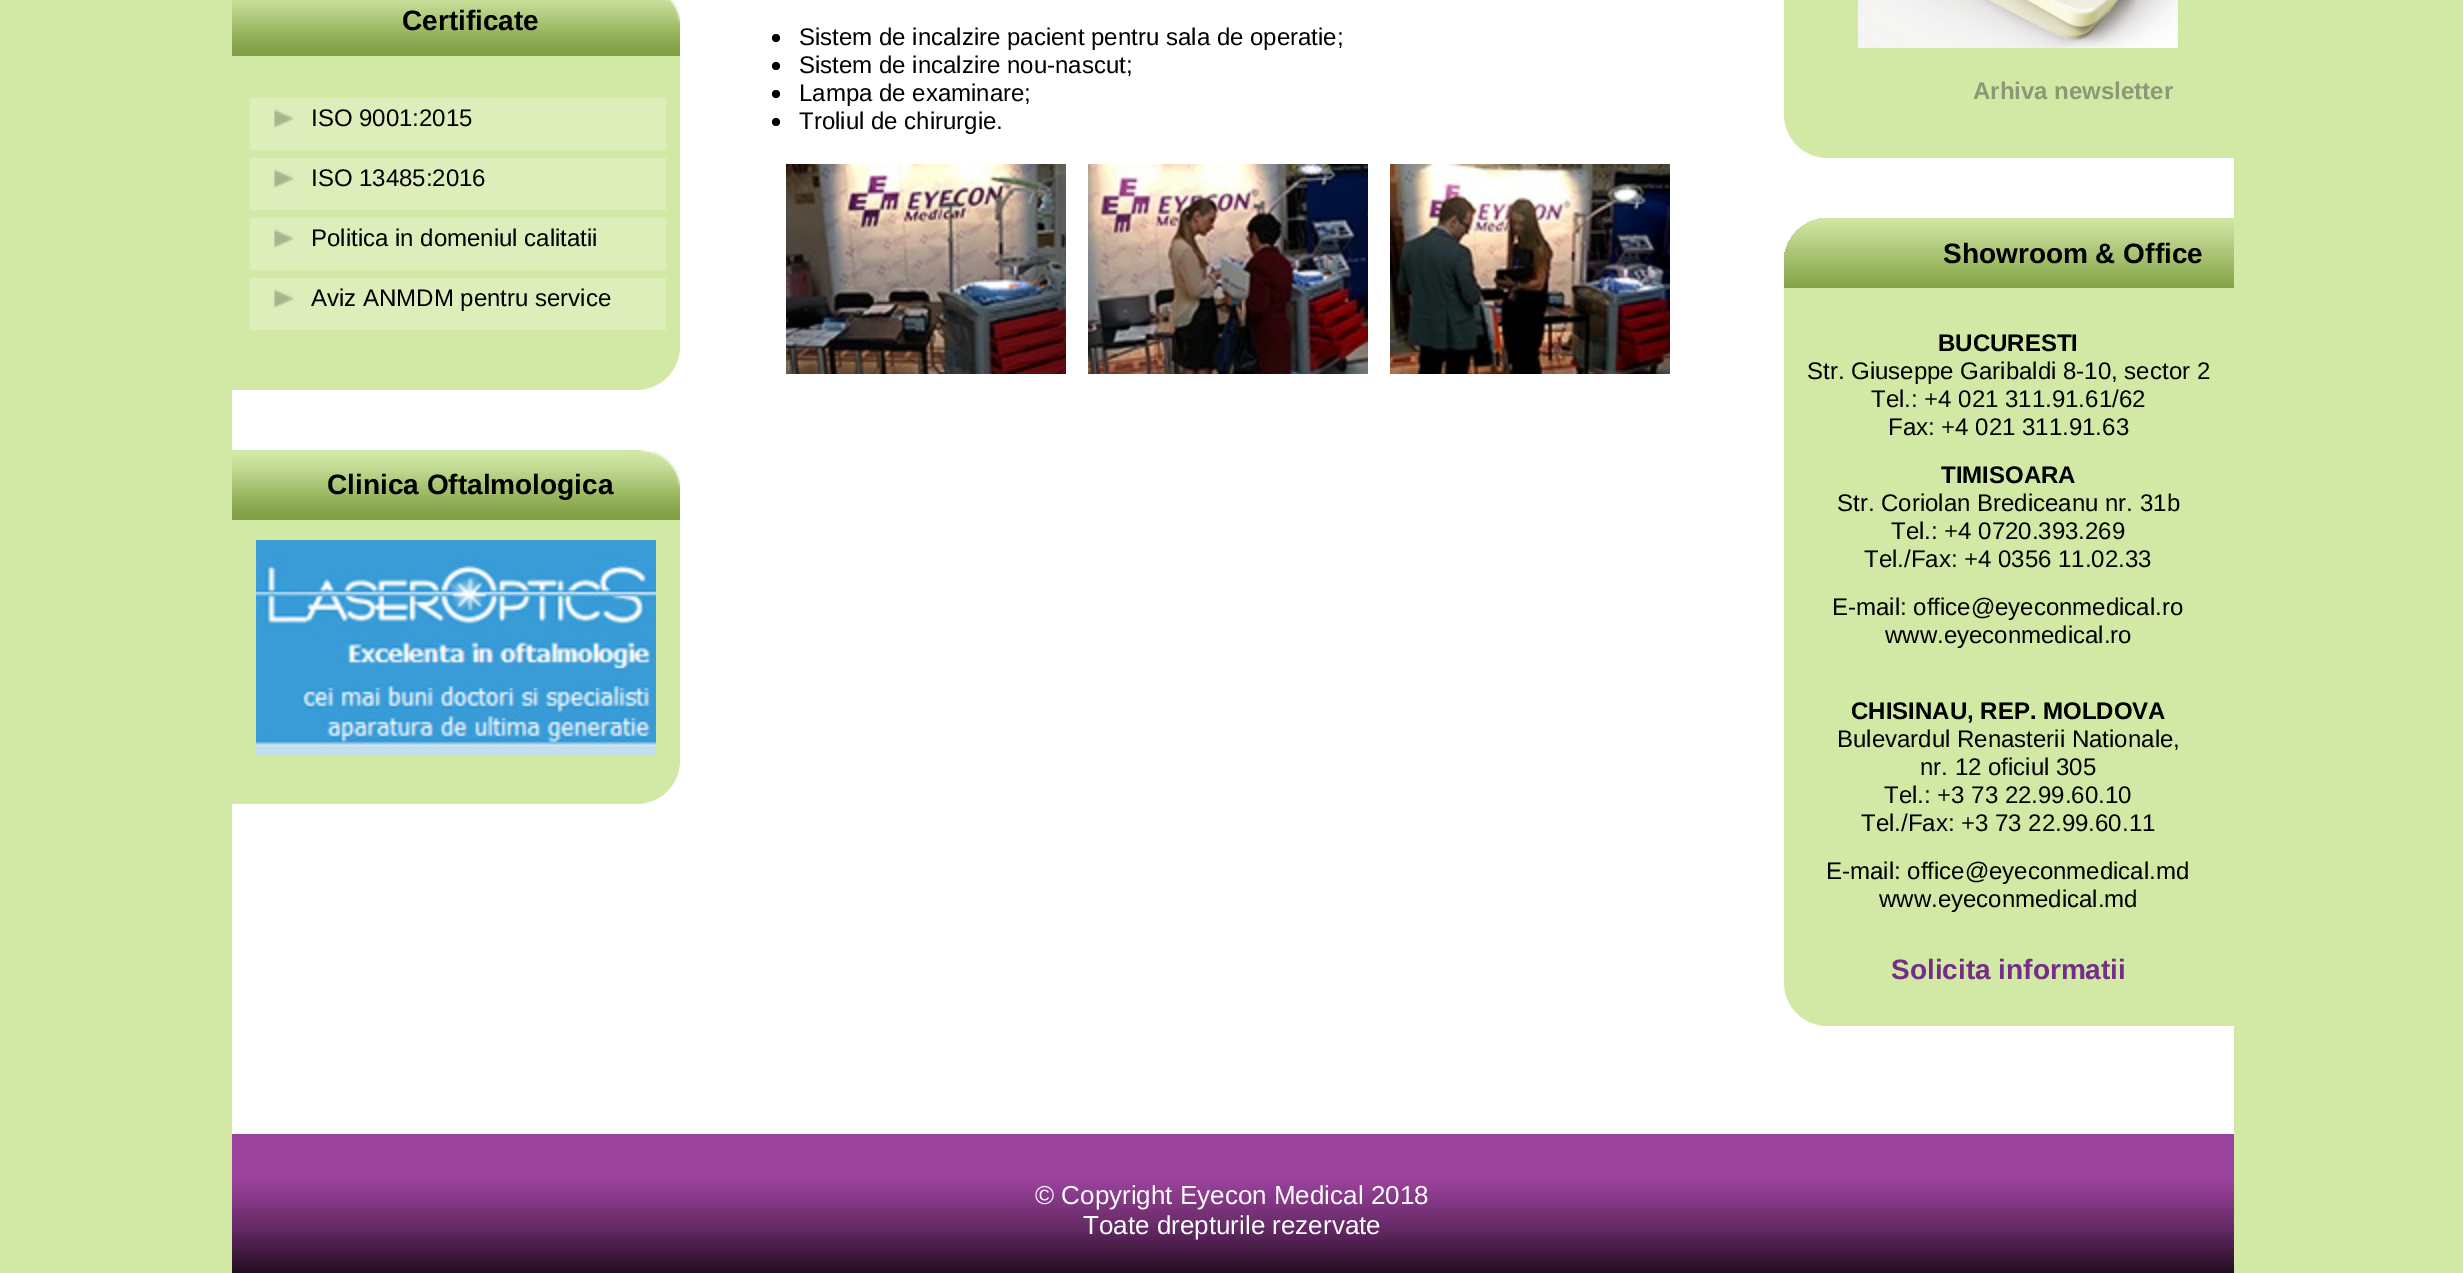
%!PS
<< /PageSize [2463 1273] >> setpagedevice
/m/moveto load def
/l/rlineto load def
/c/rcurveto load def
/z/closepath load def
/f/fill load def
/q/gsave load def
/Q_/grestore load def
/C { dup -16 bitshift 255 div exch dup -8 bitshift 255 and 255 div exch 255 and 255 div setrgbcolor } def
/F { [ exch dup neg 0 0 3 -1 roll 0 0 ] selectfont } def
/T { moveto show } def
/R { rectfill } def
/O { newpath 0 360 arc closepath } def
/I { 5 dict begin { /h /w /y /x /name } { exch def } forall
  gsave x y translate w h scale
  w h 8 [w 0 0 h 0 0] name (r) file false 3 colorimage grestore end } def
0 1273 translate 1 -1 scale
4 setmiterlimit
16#D2E9A6 C
0 0 2463 1273 R
16#FFFFFF C
232 0 2002 1134 R
16#D2E9A6 C
232 -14 m 448 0 l 0 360 l 0 24.5 -19.5 44 -44 44 c -404 0 l z f
(1.rgb) 232 0 448 56 I
/LiberationSans-Bold 28 F
16#000000 C
(Certificate) 402 30 T
16#DDEEBB C
250 98 416 52 R
(2.rgb) 273 108 21 26 I
/LiberationSans-Regular 24 F
16#000000 C
(ISO 9001:2015) 311 126 T
16#DDEEBB C
250 158 416 52 R
(2.rgb) 273 168 21 26 I
16#000000 C
(ISO 13485:2016) 311 186 T
16#DDEEBB C
250 218 416 52 R
(2.rgb) 273 228 21 26 I
16#000000 C
(Politica in domeniul calitatii) 311 246 T
16#DDEEBB C
250 278 416 52 R
(2.rgb) 273 288 21 26 I
16#000000 C
(Aviz ANMDM pentru service) 311 306 T
16#D2E9A6 C
232 450 m 448 0 l 0 310 l 0 24.5 -19.5 44 -44 44 c -404 0 l z f
(3.rgb) 232 450 448 70 I
/LiberationSans-Bold 28 F
16#000000 C
(Clinica Oftalmologica) 327 494 T
(4.rgb) 256 540 400 216 I
776 38 4 O f
/LiberationSans-Regular 24 F
(Sistem de incalzire pacient pentru sala de operatie;) 799 45 T
776 66 4 O f
(Sistem de incalzire nou-nascut;) 799 73 T
776 94 4 O f
(Lampa de examinare;) 799 101 T
776 122 4 O f
(Troliul de chirurgie.) 799 129 T
(5.rgb) 786 164 280 210 I
(6.rgb) 1088 164 280 210 I
(7.rgb) 1390 164 280 210 I
16#D2E9A6 C
1828 -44 m 406 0 l 0 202 l -406 0 l -24.5 0 -44 -19.5 -44 -44 c 0 -114 l 0 -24.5 19.5 -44 44 -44 c z f
1784 115 1 1 R
(8.rgb) 1858 0 320 48 I
/LiberationSans-Bold 24 F
16#8C9875 C
(Arhiva newsletter) 1973 99 T
16#D2E9A6 C
1828 218 m 406 0 l 0 808 l -406 0 l -24.5 0 -44 -19.5 -44 -44 c 0 -720 l 0 -24.5 19.5 -44 44 -44 c z f
q 1828 218 m 406 0 l 0 70 l -450 0 l 0 -26 l 0 -24.5 19.5 -44 44 -44 c z clip newpath
<< /ShadingType 2 /ColorSpace /DeviceRGB /Coords [2009 218 2009 288] /Extend [true true] /Function << /FunctionType 2 /Domain [0 1] /C0 [.824 .91 .655] /C1 [.518 .639 .275] /N 1 >> >> shfill Q_
/LiberationSans-Bold 28 F
16#000000 C
(Showroom & Office) 1943 263 T
16#D2E9A6 C
1784 983 1 1 R
/LiberationSans-Bold 24 F
16#000000 C
(BUCURESTI) 1938 351 T
/LiberationSans-Regular 24 F
(Str. Giuseppe Garibaldi 8-10, sector 2) 1807 379 T
(Tel.: +4 021 311.91.61/62) 1871 407 T
(Fax: +4 021 311.91.63) 1888 435 T
/LiberationSans-Bold 24 F
(TIMISOARA) 1941 483 T
/LiberationSans-Regular 24 F
(Str. Coriolan Brediceanu nr. 31b) 1837 511 T
(Tel.: +4 0720.393.269) 1891 539 T
(Tel./Fax: +4 0356 11.02.33) 1864 567 T
(E-mail: office@eyeconmedical.ro) 1832 615 T
(www.eyeconmedical.ro) 1885 643 T
/LiberationSans-Bold 24 F
(CHISINAU, REP. MOLDOVA) 1851 719 T
/LiberationSans-Regular 24 F
(Bulevardul Renasterii Nationale,) 1837 747 T
(nr. 12 oficiul 305) 1920 775 T
(Tel.: +3 73 22.99.60.10) 1884 803 T
(Tel./Fax: +3 73 22.99.60.11) 1861 831 T
(E-mail: office@eyeconmedical.md) 1826 879 T
(www.eyeconmedical.md) 1879 907 T
/LiberationSans-Bold 28 F
16#742E88 C
(Solicita informatii) 1891 979 T
q 232 1134 m 2002 0 l 0 139 l -2002 0 l z clip newpath
<< /ShadingType 2 /ColorSpace /DeviceRGB /Coords [1233 1134 1233 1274] /Extend [true true] /Function << /FunctionType 3 /Domain [0 1] /Functions [<< /FunctionType 2 /Domain [0 1] /C0 [.612 .263 .62] /C1 [.608 .259 .616] /N 1 >> << /FunctionType 2 /Domain [0 1] /C0 [.608 .259 .616] /C1 [.396 .165 .4] /N 1 >> << /FunctionType 2 /Domain [0 1] /C0 [.396 .165 .4] /C1 [.129 .051 .129] /N 1 >>] /Bounds [.33 .67] /Encode [0 1 0 1 0 1] >> >> shfill Q_
/LiberationSans-Regular 26 F
16#FFFFFF C
(© Copyright Eyecon Medical 2018) 1035 1204 T
(Toate drepturile rezervate) 1083 1234 T
showpage
